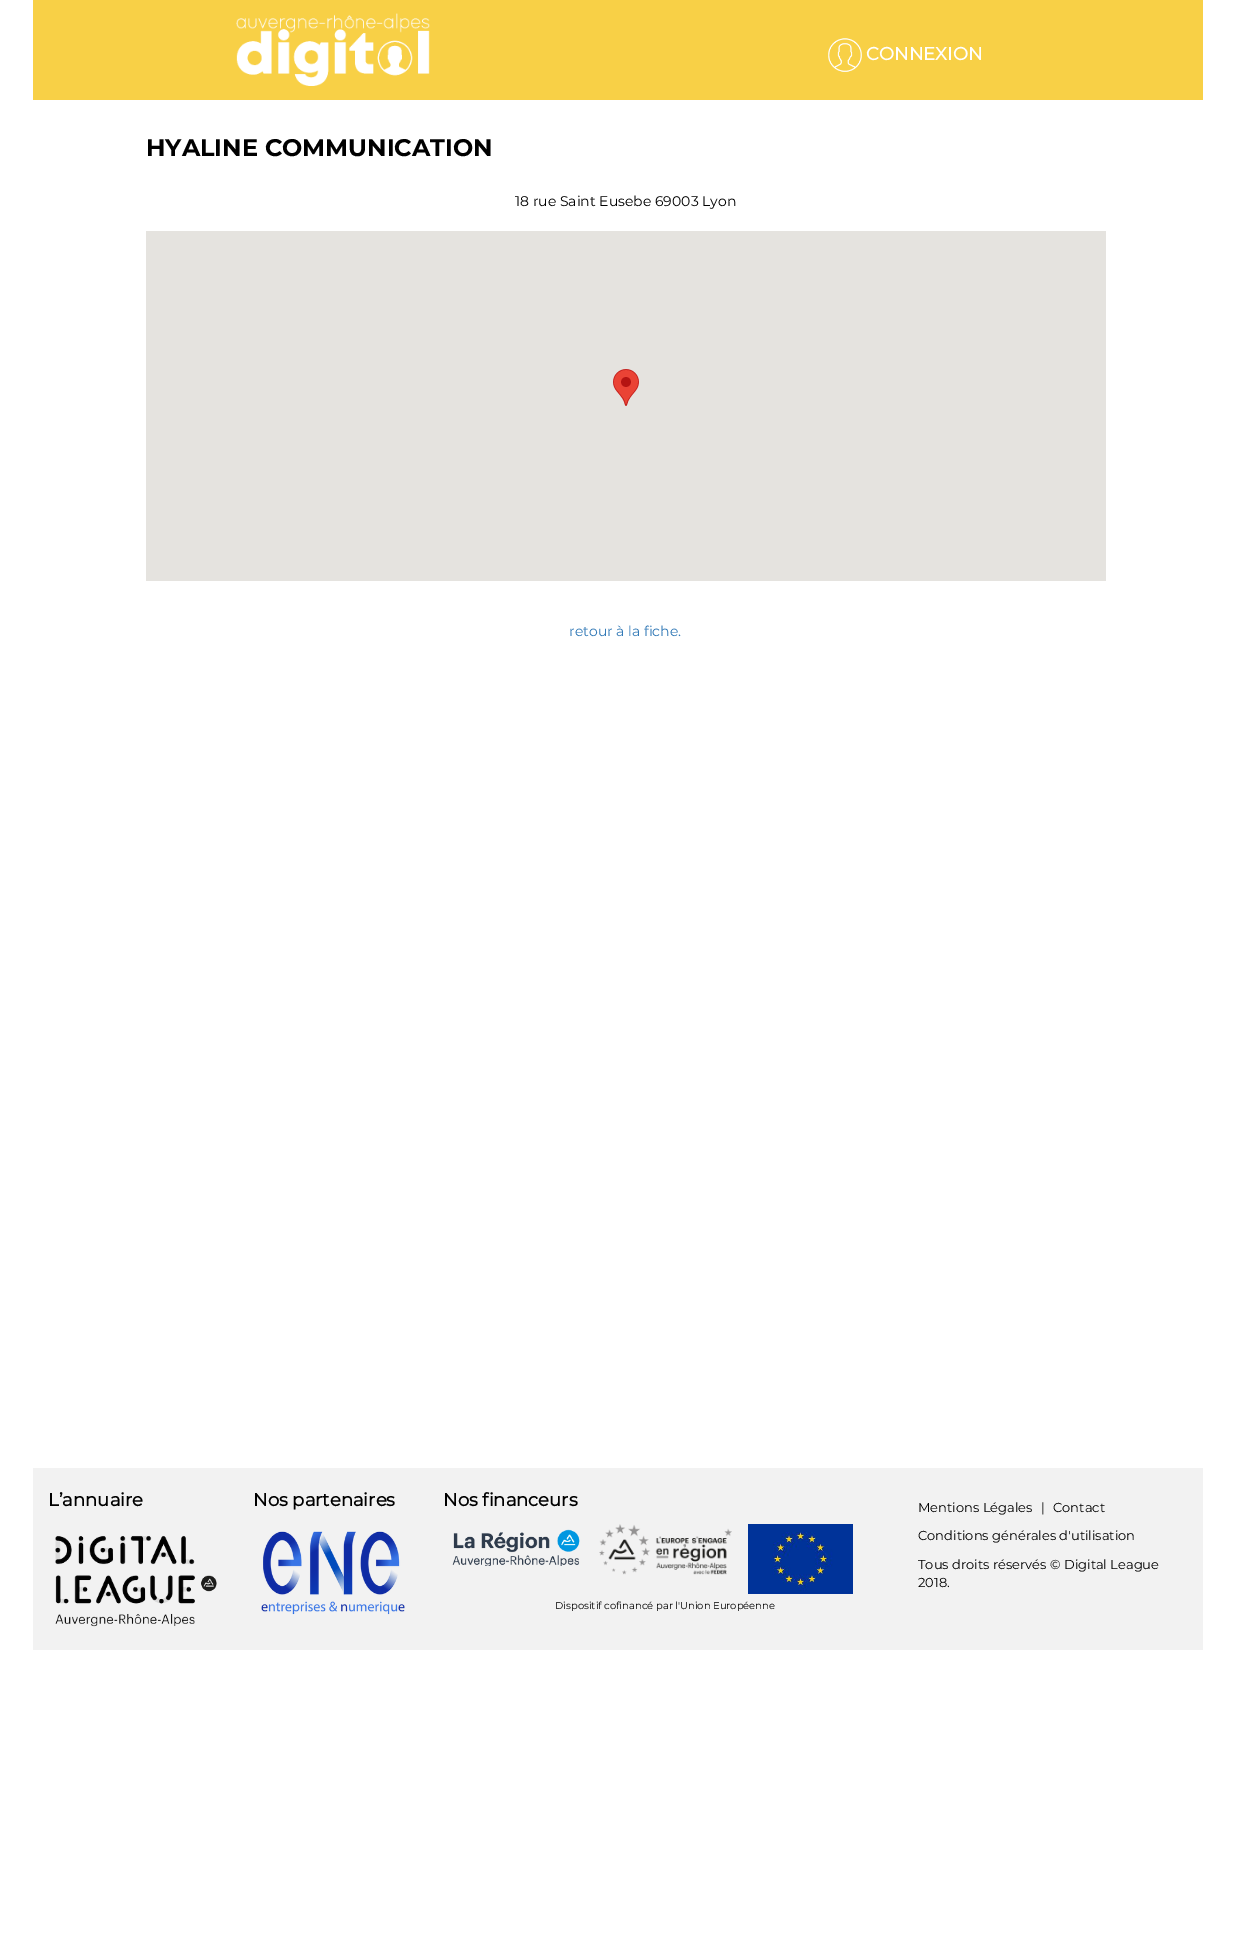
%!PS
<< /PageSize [1236 1954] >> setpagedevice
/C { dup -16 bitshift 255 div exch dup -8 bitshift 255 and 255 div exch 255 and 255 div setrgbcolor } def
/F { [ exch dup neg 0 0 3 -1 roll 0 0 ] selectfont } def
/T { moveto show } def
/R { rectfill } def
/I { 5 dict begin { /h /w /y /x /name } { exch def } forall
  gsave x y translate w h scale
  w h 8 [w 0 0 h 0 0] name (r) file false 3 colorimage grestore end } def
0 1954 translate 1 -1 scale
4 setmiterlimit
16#FFFFFF C
0 0 1236 1954 R
16#F8D046 C
33 0 1170 100 R
(1.rgb) 236 13 194 73 I
(2.rgb) 828 38 34 34 I
/Montserrat-Bold 18 F
16#FFFFFF C
(CONNEXION) 866 60 T
/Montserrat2-Bold 24 F
16#000000 C
(HYALINE COMMUNICATION) 146 156 T
/Montserrat-Regular 14 F
(18 rue Saint Eusebe 69003 Lyon) 515 206 T
16#E5E3DF C
146 231 960 350 R
(3.rgb) 613 369 26 37 I
16#337AB7 C
(retour à la fiche.) 569 636 T
16#F2F2F2 C
33 1468 1170 182 R
/Montserrat-Bold 18 F
16#000000 C
(L’annuaire) 48 1506 T
(4.rgb) 55 1535 162 92 I
(Nos partenaires) 253 1506 T
(5.rgb) 261 1531 144 84 I
(Nos financeurs) 443 1506 T
(6.rgb) 452 1529 128 37 I
(7.rgb) 599 1524 133 51 I
(8.rgb) 748 1524 105 70 I
/Montserrat-Regular 10 F
(Dispositif cofinancé par l'Union Européenne) 555 1609 T
/Montserrat-Regular 13 F
(Mentions Légales) 918 1512 T
(|) 1041 1512 T
(Contact) 1053 1512 T
(Conditions générales d'utilisation) 918 1540 T
(Tous droits réservés © Digital League) 918 1569 T
(2018.) 918 1587 T
showpage
